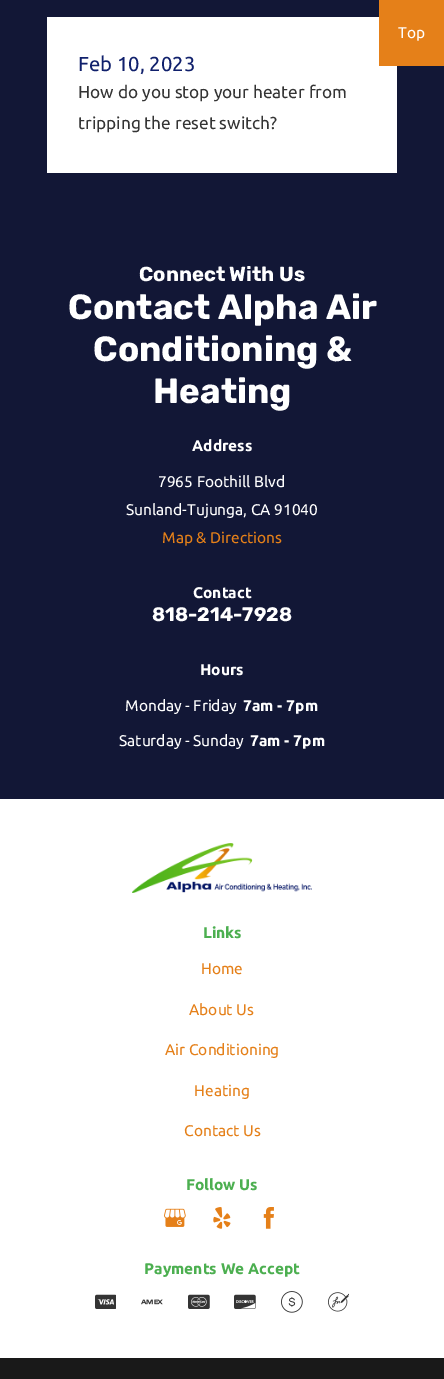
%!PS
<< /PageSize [444 1379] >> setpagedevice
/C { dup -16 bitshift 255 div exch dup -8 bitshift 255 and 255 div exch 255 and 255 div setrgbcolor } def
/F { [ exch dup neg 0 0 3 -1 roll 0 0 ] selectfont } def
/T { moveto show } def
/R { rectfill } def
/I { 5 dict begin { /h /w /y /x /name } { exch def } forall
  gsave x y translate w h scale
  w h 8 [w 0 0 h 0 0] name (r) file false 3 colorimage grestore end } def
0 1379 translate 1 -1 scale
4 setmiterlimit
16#FFFFFF C
0 0 444 1379 R
16#121736 C
0 0 444 799 R
16#FFFFFF C
47 17 350 156 R
16#E58019 C
379 0 65 66 R
/Ubuntu-Regular 15.5 F
16#FFFFFF C
(Top) 398 38 T
/Ubuntu-Regular 20.25 F
16#10206C C
(Feb 10, 2023) 78 71 T
/Ubuntu-Regular 17.25 F
16#343434 C
(How do you stop your heater from) 78 98 T
(tripping the reset switch?) 78 129 T
/Rubik-Bold 20.25 F
16#FFFFFF C
(Connect With Us) 139 281 T
/Rubik-Bold 35 F
(Contact Alpha Air) 68 319 T
(Conditioning &) 93 361 T
(Heating) 153 403 T
/Ubuntu-Bold 15.5 F
(Address) 192 451 T
/Ubuntu-Regular 15.5 F
(7965 Foothill Blvd) 158 487 T
(Sunland-Tujunga, CA 91040) 126 515 T
16#E58019 C
(Map & Directions) 162 543 T
/Ubuntu-Bold 15.5 F
16#FFFFFF C
(Contact) 193 598 T
/Rubik-Bold 19.5 F
(818-214-7928) 152 621 T
/Ubuntu-Bold 15.5 F
(Hours) 200 675 T
/Ubuntu-Regular 15.5 F
(Monday - Friday) 125 711 T
/Ubuntu-Bold 15.5 F
(7am - 7pm) 243 711 T
/Ubuntu-Regular 15.5 F
(Saturday - Sunday) 119 746 T
/Ubuntu-Bold 15.5 F
(7am - 7pm) 250 746 T
(1.rgb) 132 843 180 50 I
16#4CAF50 C
(Links) 203 938 T
/Ubuntu-Regular 15.5 F
16#E58019 C
(Home) 201 974 T
(About Us) 189 1015 T
(Air Conditioning) 165 1055 T
(Heating) 194 1096 T
(Contact Us) 184 1136 T
/Ubuntu-Bold 15.5 F
16#4CAF50 C
(Follow Us) 186 1190 T
(2.rgb) 164 1208 22 19 I
(3.rgb) 213 1207 18 22 I
(4.rgb) 263 1207 11 22 I
(Payments We Accept) 144 1274 T
(5.rgb) 95 1294 21 15 I
(6.rgb) 141 1299 22 6 I
(7.rgb) 188 1294 22 15 I
(8.rgb) 234 1294 22 15 I
(9.rgb) 281 1291 22 22 I
(10.rgb) 328 1292 21 20 I
16#191919 C
0 1358 444 21 R
showpage
